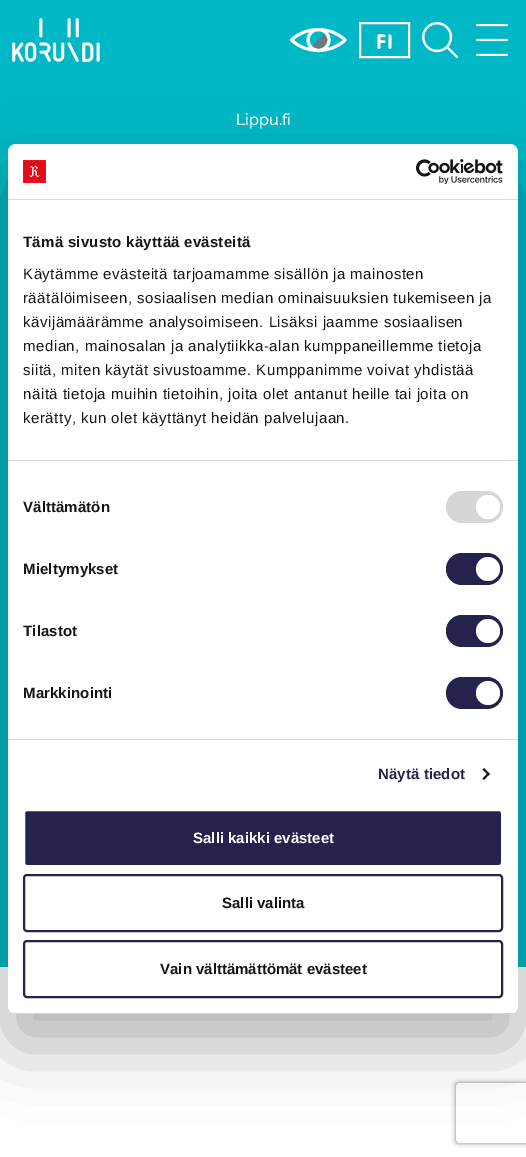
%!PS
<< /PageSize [526 1157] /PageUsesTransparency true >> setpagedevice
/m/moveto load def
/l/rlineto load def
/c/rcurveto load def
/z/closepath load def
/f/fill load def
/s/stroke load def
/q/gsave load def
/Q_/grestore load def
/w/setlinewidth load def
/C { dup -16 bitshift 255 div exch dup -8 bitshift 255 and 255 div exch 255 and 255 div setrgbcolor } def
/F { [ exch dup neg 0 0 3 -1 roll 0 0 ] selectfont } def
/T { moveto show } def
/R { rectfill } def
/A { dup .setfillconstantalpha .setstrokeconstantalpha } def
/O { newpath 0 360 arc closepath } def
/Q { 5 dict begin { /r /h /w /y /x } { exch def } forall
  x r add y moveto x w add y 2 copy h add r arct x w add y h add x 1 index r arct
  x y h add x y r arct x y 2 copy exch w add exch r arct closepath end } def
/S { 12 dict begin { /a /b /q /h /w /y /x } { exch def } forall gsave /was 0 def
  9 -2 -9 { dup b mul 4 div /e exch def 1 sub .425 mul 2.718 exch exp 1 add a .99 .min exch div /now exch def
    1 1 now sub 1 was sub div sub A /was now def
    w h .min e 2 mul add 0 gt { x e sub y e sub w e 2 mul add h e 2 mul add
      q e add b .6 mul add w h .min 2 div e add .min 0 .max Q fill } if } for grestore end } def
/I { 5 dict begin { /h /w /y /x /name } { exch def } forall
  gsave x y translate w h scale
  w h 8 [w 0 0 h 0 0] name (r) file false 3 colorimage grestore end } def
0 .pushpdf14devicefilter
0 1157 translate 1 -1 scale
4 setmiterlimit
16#FFFFFF C
0 0 526 1157 R
16#00B7C6 C
0 0 526 967 R
(1.rgb) 12 18 88 44 I
16#6E7881 C
326 32.5 m 10 10 -5.5 25 -15.5 15 c z f
16#FFFFFF C
2.9 w
1 setlinecap
1 setlinejoin
345 40 m -14 -14 -39.5 -14 -53.5 0 c 14 14 39.5 14 53.5 0 c z s
3 w
0 setlinecap
0 setlinejoin
318.5 40 10.5 O s
2 w
360 23 49 34 rectstroke
/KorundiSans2-Bold 21 F
(FI) 376 49 T
(2.rgb) 422 22 36 36 I
(3.rgb) 476 24 32 32 I
/Raleway-Thin 16 F
(Lippu.fi) 236 125 T
16#000000 C
8 176 510 870 8 34 .3 S
16#FFFFFF C
8 144 510 870 8 Q f
16#D6D6D6 C
8 199 510 1 R
(4.rgb) 23 160 23 23 I
(5.rgb) 416 159 87 25 I
8 460 510 1 R
/LiberationSans-Bold 15 F
16#141414 C
23 247 m .25 0 (Tämä sivusto käyttää evästeitä) ashow
/LiberationSans-Regular 15 F
23 279 m .5 0 (Käytämme evästeitä tarjoamamme sisällön ja mainosten) ashow
23 303 m .5 0 (räätälöimiseen, sosiaalisen median ominaisuuksien tukemiseen ja) ashow
23 327 m .5 0 (kävijämäärämme analysoimiseen. Lisäksi jaamme sosiaalisen) ashow
23 351 m .5 0 (median, mainosalan ja analytiikka-alan kumppaneillemme tietoja) ashow
23 375 m .5 0 (siitä, miten käytät sivustoamme. Kumppanimme voivat yhdistää) ashow
23 399 m .5 0 (näitä tietoja muihin tietoihin, joita olet antanut heille tai joita on) ashow
23 423 m .5 0 (kerätty, kun olet käyttänyt heidän palvelujaan.) ashow
16#D6D6D6 C
8 739 510 1 R
/LiberationSans-Bold 15 F
16#141414 C
23 512 m .1 0 (Välttämätön) ashow
16#D6D6D6 C
446 491 57 32 16 Q f
16#FFFFFF C
488 507 12 O f
16#141414 C
23 574 m .1 0 (Mieltymykset) ashow
16#26224E C
446 553 57 32 16 Q f
16#FFFFFF C
488 569 12 O f
16#141414 C
23 636 m .1 0 (Tilastot) ashow
16#26224E C
446 615 57 32 16 Q f
16#FFFFFF C
488 631 12 O f
16#141414 C
23 698 m .1 0 (Markkinointi) ashow
16#26224E C
446 677 57 32 16 Q f
16#FFFFFF C
488 693 12 O f
16#26224E C
378 779 m .1 0 (Näytä tiedot) ashow
16#141414 C
484 768 m 5.5 6 l -1 1.5 l -6 -6 l z f
488.5 772.5 m 1 1.5 l -5.5 6 l -1.5 -1.5 l z f
q
8 144 510 870 8 Q clip newpath
16#D6D6D6 C
8 1013 510 1 R
Q_
16#26224E C
24 810 478 56 3 Q q f Q_
16#FFFFFF C
s
(Salli kaikki evästeet) 193 843 T
16#26224E C
24 875 478 56 3 Q s
16#141414 C
(Salli valinta) 222 908 T
16#26224E C
24 941 478 56 3 Q s
16#141414 C
(Vain välttämättömät evästeet) 160 974 T
q
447 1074 m 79 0 l 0 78 l -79 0 l z 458 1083 m 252 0 l 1 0 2 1 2 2 c 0 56 l 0 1 -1 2 -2 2 c -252 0 l -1 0 -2 -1 -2 -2 c 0 -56 l 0 -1 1 -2 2 -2 c z eoclip newpath
16#808080 C
456 1083 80 60 2 2.5 1 S
Q_
.poppdf14devicefilter showpage
